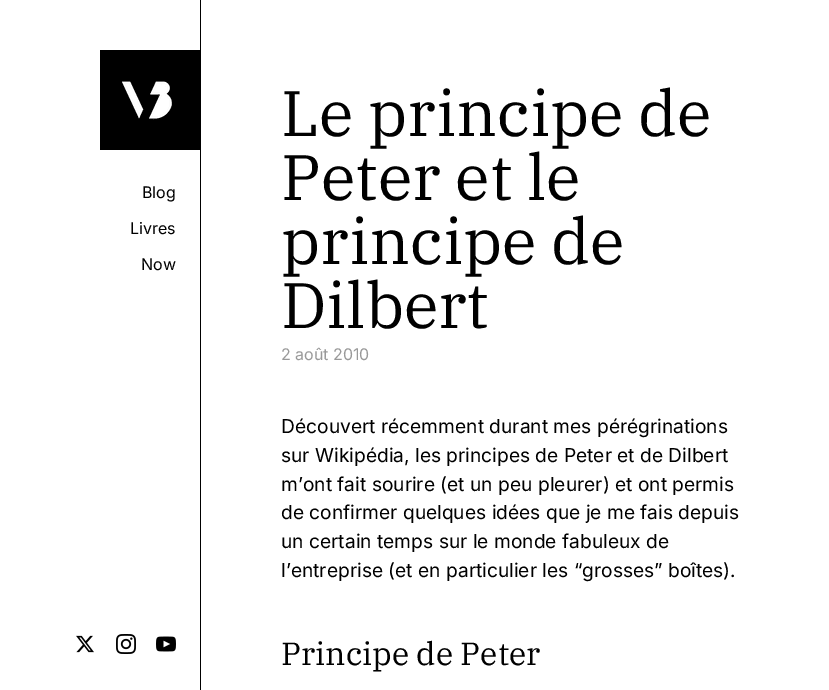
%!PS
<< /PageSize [829 690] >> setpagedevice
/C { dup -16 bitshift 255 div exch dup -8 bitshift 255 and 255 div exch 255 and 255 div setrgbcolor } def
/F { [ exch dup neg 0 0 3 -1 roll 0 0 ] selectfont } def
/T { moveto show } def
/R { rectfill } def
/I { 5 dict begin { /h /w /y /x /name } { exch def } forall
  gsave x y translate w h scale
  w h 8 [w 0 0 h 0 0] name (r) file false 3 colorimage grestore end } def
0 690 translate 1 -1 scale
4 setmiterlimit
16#FFFFFF C
0 0 829 690 R
(1.rgb) 100 50 100 100 I
/Inter-Regular 16 F
16#000000 C
(Blog) 142 198 T
(Livres) 130 234 T
(Now) 141 270 T
(2.rgb) 76 635 18 18 I
(3.rgb) 116 634 20 20 I
(4.rgb) 156 636 20 16 I
200 0 1 690 R
/IBMPlexSerif-Regular 64 F
(Le principe de) 281 136 T
(Peter et le) 281 200 T
(principe de) 281 264 T
(Dilbert) 281 328 T
/Inter-Regular 16 F
16#999999 C
(2 août 2010) 281 360 T
/Inter-Regular 19.2 F
16#000000 C
(Découvert récemment durant mes pérégrinations) 281 433 T
(sur Wikipédia, les principes de Peter et de Dilbert) 281 462 T
(m’ont fait sourire \(et un peu pleurer\) et ont permis) 281 491 T
(de confirmer quelques idées que je me fais depuis) 281 519 T
(un certain temps sur le monde fabuleux de) 281 548 T
(l’entreprise \(et en particulier les “grosses” boîtes\).) 281 577 T
/IBMPlexSerif-Regular 32 F
(Principe de Peter) 281 665 T
showpage
